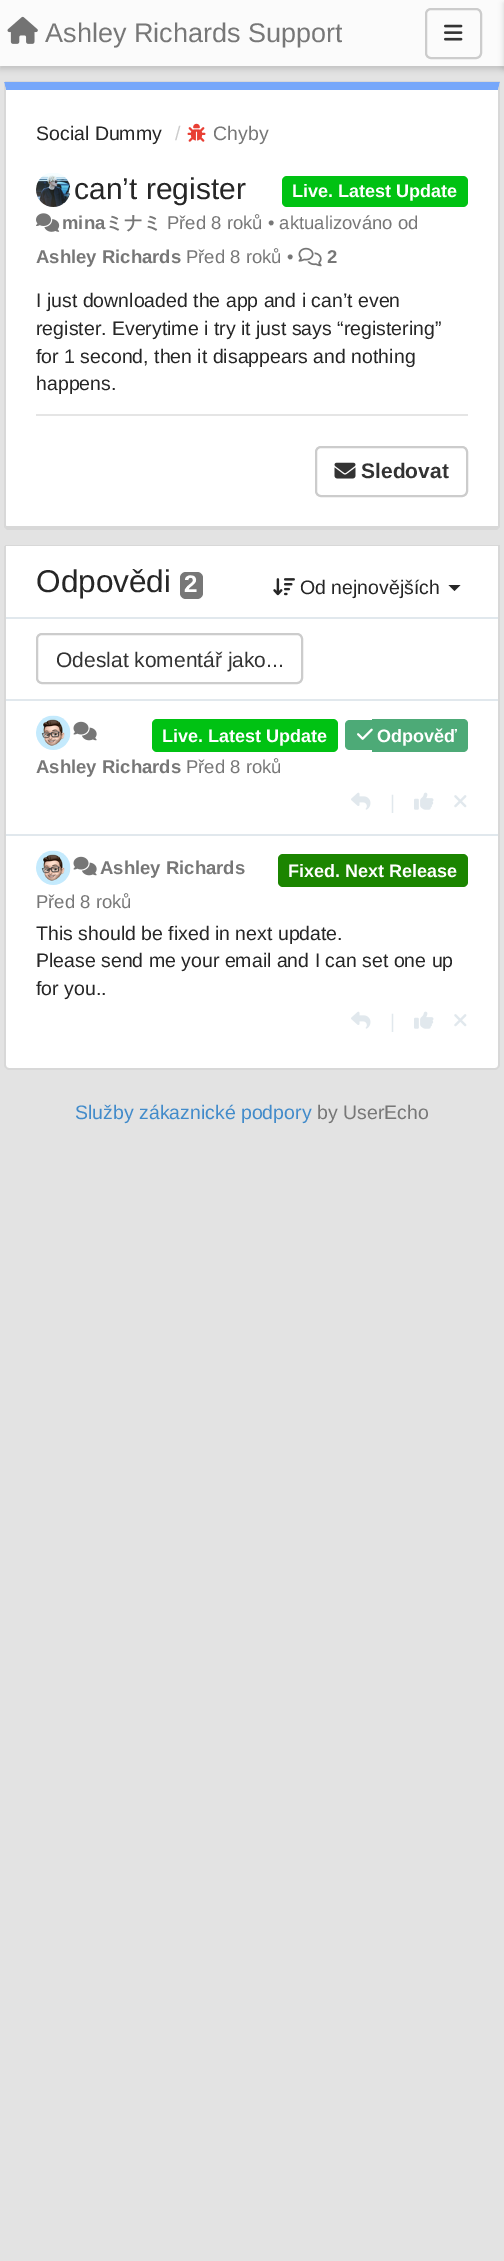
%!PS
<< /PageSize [504 2261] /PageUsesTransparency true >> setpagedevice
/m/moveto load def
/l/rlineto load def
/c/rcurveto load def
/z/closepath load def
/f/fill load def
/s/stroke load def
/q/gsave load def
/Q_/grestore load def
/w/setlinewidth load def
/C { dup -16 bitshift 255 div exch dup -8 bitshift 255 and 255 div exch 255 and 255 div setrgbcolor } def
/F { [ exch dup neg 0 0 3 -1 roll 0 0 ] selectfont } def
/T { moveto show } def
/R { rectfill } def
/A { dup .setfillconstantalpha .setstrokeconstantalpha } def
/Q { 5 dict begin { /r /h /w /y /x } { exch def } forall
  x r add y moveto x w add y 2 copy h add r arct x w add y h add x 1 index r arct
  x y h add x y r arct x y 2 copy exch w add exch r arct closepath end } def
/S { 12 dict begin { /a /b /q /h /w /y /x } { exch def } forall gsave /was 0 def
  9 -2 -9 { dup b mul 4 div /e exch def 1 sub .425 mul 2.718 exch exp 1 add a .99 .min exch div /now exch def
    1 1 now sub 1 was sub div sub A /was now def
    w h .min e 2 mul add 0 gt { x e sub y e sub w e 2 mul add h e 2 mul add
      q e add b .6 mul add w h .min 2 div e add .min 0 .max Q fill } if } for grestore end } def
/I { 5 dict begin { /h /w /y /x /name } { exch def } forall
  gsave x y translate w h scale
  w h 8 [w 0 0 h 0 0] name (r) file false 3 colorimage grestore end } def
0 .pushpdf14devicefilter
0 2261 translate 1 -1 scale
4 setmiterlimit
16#E3E3E3 C
0 0 504 2261 R
16#000000 C
0 3 504 66 0 3 .15 S
16#FBFBFB C
0 0 504 66 R
(1.rgb) 7 16 31 28 I
q
45 18 297 30 rectclip
/LiberationSans-Regular 27 F
16#777777 C
(Ashley Richards Support) 45 42 T
Q_
16#CCCCCC C
2 w
426 9 55 49 5 Q s
(2.rgb) 444 24 19 17 I
16#000000 C
504 3 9 66 0 3 .15 S
16#D8D8D8 C
5 81 495 2 R
16#FFFFFF C
6 90 m 492 0 l 0 436 l -3 0 l -486 0 l -1 0 -3 0 -3 -1 c z f
16#76A7FA C
6 90 m 492 0 l 2 -8 l -496 0 l z f
16#D8D8D8 C
500 82 m 0 445 l -1 1 l -1 -2 l 0 -436 l z f
7 530 m -2 -2 l 1 -2 l 492 0 l 1 2 l -2 2 l z f
6 90 m 0 435 l 0 1 l -1 2 l -1 -1 l 0 -445 l z f
/LiberationSans-Regular 19.5 F
16#262626 C
(Social Dummy) 36 140 T
16#CCCCCC C
(/) 175 140 T
(3.rgb) 187 123 19 19 I
16#777777 C
(Chyby) 213 140 T
(4.rgb) 36 173 35 34 I
/LiberationSans-Regular 30 F
16#262626 C
(can’t register) 74 199 T
16#00C213 C
282 176 186 31 5 Q f
/LiberationSans-Bold 18 F
16#FFFFFF C
(Live. Latest Update) 292 197 T
(5.rgb) 36 213 24 19 I
/LiberationSans-Bold 18.5 F
16#777777 C
(mina) 62 229 T
/WenQuanYiZenHei-Bold 18.5 F
(ミナミ) 105 229 T
/LiberationSans-Regular 18.5 F
(Před 8 roků • aktualizováno od) 167 229 T
/LiberationSans-Bold 18.5 F
(Ashley Richards) 36 263 T
/LiberationSans-Regular 18.5 F
(Před 8 roků •) 186 263 T
(6.rgb) 298 247 24 20 I
/LiberationSans-Bold 18.5 F
(2) 327 263 T
/LiberationSans-Regular 19.5 F
16#262626 C
(I just downloaded the app and i can’t even) 36 307 T
(register. Everytime i try it just says “registering”) 36 335 T
(for 1 second, then it disappears and nothing) 36 363 T
(happens.) 36 390 T
16#E5E5E5 C
36 414 432 2 R
16#CCCCCC C
316 447 151 49 5 Q s
(7.rgb) 334 462 22 17 I
/LiberationSans-Bold 21 F
16#333333 C
(Sledovat) 361 478 T
16#D8D8D8 C
5 545 495 1 R
16#FFFFFF C
6 546 m 492 0 l 0 519 l 0 1.5 -1.5 3 -3 3 c -486 0 l -1.5 0 -3 -1.5 -3 -3 c z f
16#D8D8D8 C
4 546 m 496 0 l 0 519 l 0 2 -3 5 -5 5 c -486 0 l -2 0 -5 -3 -5 -5 c z 6 546 m 492 0 l 0 519 l 0 2 -1 3 -3 3 c -486 0 l -2 0 -3 -1 -3 -3 c z eofill
/LiberationSans-Regular 31.5 F
16#262626 C
(Odpovědi) 36 592 T
16#777777 C
180 572 23 27 6 Q f
/LiberationSans-Bold 24 F
16#FFFFFF C
(2) 184 592 T
(8.rgb) 273 578 22 18 I
/LiberationSans-Regular 19.5 F
16#262626 C
(Od nejnovějších) 300 594 T
448.5 585 m 12 0 l -6 6 l z f
16#E1E8ED C
6 617 492 2 R
6 699 492 2 R
16#CCCCCC C
37 634 265 49 5 Q s
/LiberationSans-Regular 21 F
16#333333 C
(Odeslat komentář jako...) 56 667 T
16#E1E8ED C
6 834 492 2 R
(9.rgb) 36 715 35 35 I
16#00C213 C
152 719 186 33 5 Q f
/LiberationSans-Bold 18 F
16#FFFFFF C
(Live. Latest Update) 162 742 T
16#4DAA77 C
350 720 m 22 0 l 0 30 l -22 0 l -3 0 -5 -2 -5 -5 c 0 -20 l 0 -3 2 -5 5 -5 c z f
372 719 m 91 0 l 3 0 5 2 5 5 c 0 23 l 0 3 -2 5 -5 5 c -91 0 l z f
(10.rgb) 357 728 16 12 I
16#FFFFFF C
(Odpověď) 377 742 T
(11.rgb) 73 721 24 20 I
/LiberationSans-Bold 18.5 F
16#777777 C
(Ashley Richards) 36 773 T
/LiberationSans-Regular 18.5 F
(Před 8 roků) 186 773 T
(12.rgb) 351 792 20 18 I
/LiberationSans-Regular 19.5 F
16#E1E8ED C
(|) 390 809 T
(13.rgb) 414 792 20 18 I
(14.rgb) 454 795 13 13 I
(9.rgb) 36 850 35 35 I
(11.rgb) 73 856 24 20 I
/LiberationSans-Bold 18.5 F
16#777777 C
(Ashley Richards) 100 874 T
/LiberationSans-Regular 18.5 F
(Před 8 roků) 36 908 T
16#1B8500 C
278 854 190 33 5 Q f
/LiberationSans-Bold 18 F
16#FFFFFF C
(Fixed. Next Release) 288 877 T
/LiberationSans-Regular 19.5 F
16#262626 C
(This should be fixed in next update.) 36 940 T
(Please send me your email and I can set one up) 36 967 T
(for you..) 36 995 T
(12.rgb) 351 1011 20 18 I
16#E1E8ED C
(|) 390 1028 T
(13.rgb) 414 1011 20 18 I
(14.rgb) 454 1014 13 13 I
16#428BCA C
(Služby zákaznické podpory) 75 1119 T
16#777777 C
(by UserEcho) 317 1119 T
.poppdf14devicefilter showpage
